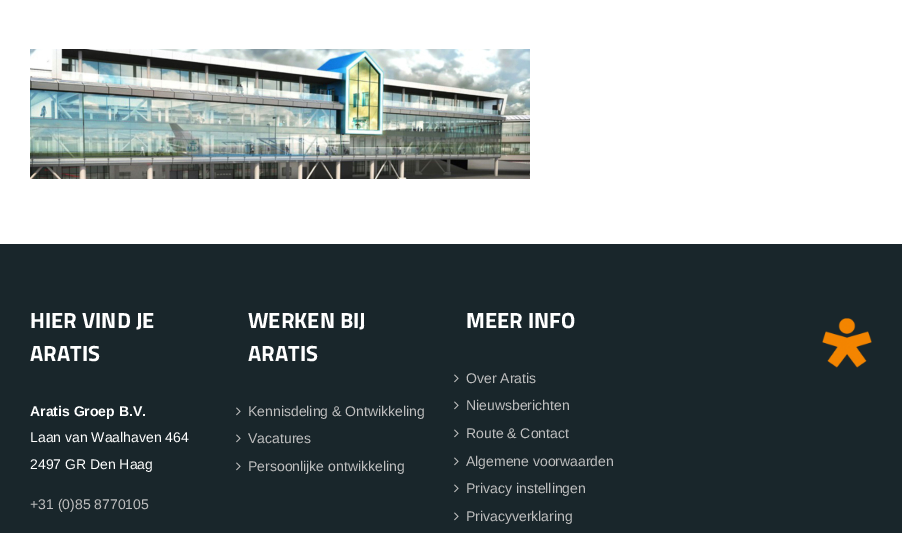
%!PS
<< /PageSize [902 533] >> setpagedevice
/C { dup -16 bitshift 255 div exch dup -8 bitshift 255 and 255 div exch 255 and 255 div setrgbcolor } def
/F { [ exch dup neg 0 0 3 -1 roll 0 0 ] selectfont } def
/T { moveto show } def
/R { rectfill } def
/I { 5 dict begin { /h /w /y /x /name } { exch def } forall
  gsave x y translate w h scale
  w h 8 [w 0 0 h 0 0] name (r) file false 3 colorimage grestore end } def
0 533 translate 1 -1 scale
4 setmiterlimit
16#FFFFFF C
0 0 902 533 R
(1.rgb) 30 49 500 130 I
16#19262B C
0 244 902 289 R
/TitilliumWeb-Bold 22 F
16#FFFFFF C
(HIER VIND JE) 30 328 T
(ARATIS) 30 361 T
/LiberationSans-Bold 14 F
(Aratis Groep B.V.) 30 416 T
/LiberationSans-Regular 14 F
(Laan van Waalhaven 464) 30 442 T
(2497 GR Den Haag) 30 469 T
16#BFBFBF C
(+31 \(0\)85 8770105) 30 509 T
/TitilliumWeb-Bold 22 F
16#FFFFFF C
(WERKEN BIJ) 248 328 T
(ARATIS) 248 361 T
(2.rgb) 236 407 5 9 I
/LiberationSans-Regular 14 F
16#BFBFBF C
(Kennisdeling & Ontwikkeling) 248 416 T
(2.rgb) 236 434 5 9 I
(Vacatures) 248 443 T
(2.rgb) 236 462 5 9 I
(Persoonlijke ontwikkeling) 248 471 T
/TitilliumWeb-Bold 22 F
16#FFFFFF C
(MEER INFO) 466 328 T
(2.rgb) 454 374 5 9 I
/LiberationSans-Regular 14 F
16#BFBFBF C
(Over Aratis) 466 383 T
(2.rgb) 454 401 5 9 I
(Nieuwsberichten) 466 410 T
(2.rgb) 454 429 5 9 I
(Route & Contact) 466 438 T
(2.rgb) 454 457 5 9 I
(Algemene voorwaarden) 466 466 T
(2.rgb) 454 484 5 9 I
(Privacy instellingen) 466 493 T
(2.rgb) 454 512 5 9 I
(Privacyverklaring) 466 521 T
(3.rgb) 822 318 50 50 I
showpage
